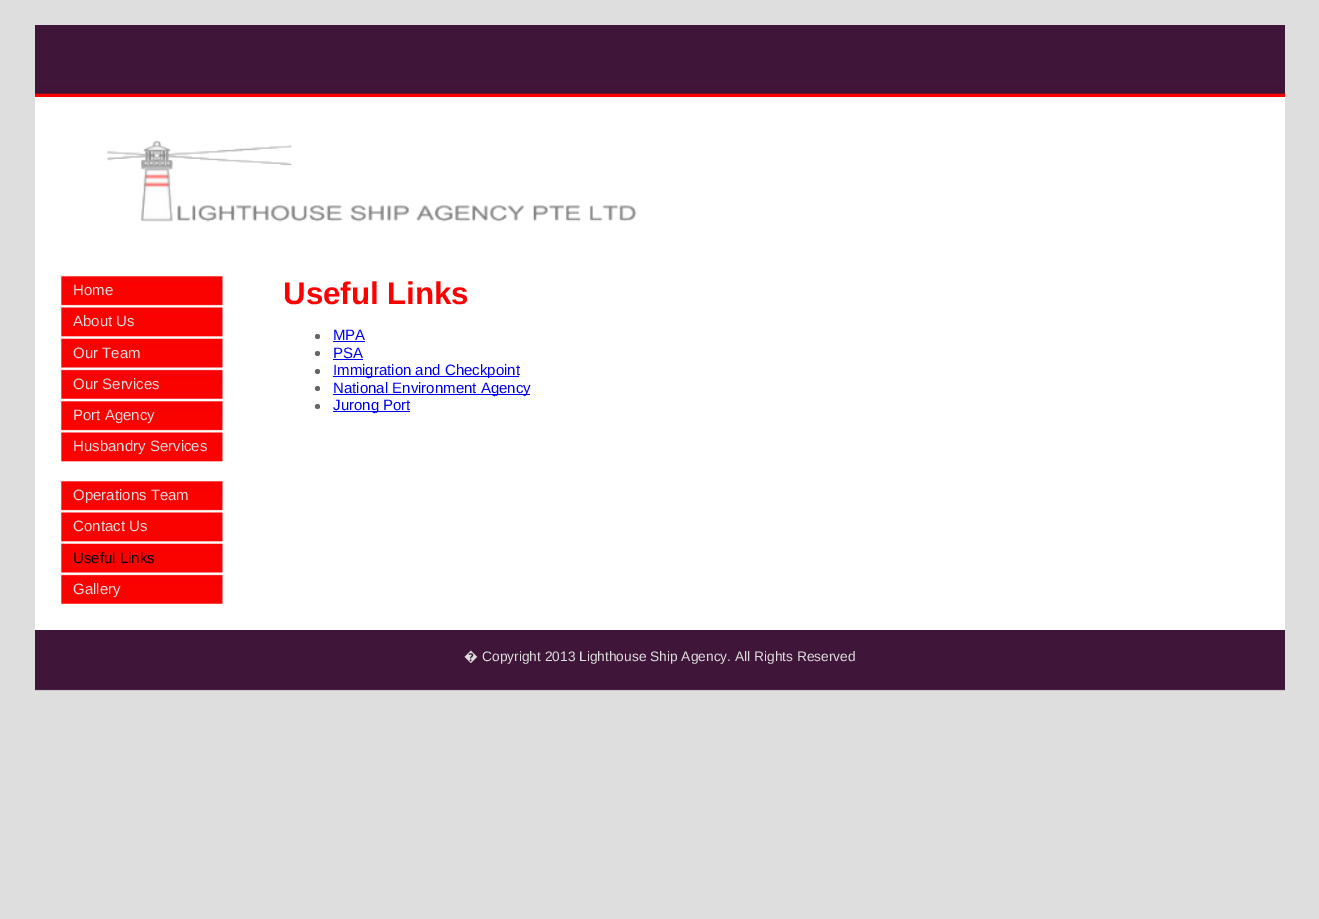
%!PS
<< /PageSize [1319 919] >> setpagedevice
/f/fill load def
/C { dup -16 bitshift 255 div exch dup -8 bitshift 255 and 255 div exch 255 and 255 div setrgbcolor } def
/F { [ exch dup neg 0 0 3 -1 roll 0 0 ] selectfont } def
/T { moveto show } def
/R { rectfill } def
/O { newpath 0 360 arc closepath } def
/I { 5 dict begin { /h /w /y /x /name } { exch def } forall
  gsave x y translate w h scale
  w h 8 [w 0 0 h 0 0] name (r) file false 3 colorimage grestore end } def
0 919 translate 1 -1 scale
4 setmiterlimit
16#DEDEDE C
0 0 1319 919 R
(1.rgb) 35 25 1250 72 I
16#FFFFFF C
35 97 1250 533 R
(2.rgb) 107 141 530 81 I
(3.rgb) 60 275 163 31 I
/LiberationSans-Regular 15 F
16#DEDEDE C
(Home) 73 295 T
(4.rgb) 60 306 163 31 I
(About Us) 73 326 T
(5.rgb) 60 337 163 31 I
(Our Team) 73 358 T
(6.rgb) 60 368 163 31 I
(Our Services) 73 389 T
(3.rgb) 60 400 163 31 I
(Port Agency) 73 420 T
(4.rgb) 60 431 163 31 I
(Husbandry Services) 73 451 T
(3.rgb) 60 480 163 31 I
(Operations Team) 73 500 T
(4.rgb) 60 511 163 31 I
(Contact Us) 73 531 T
(5.rgb) 60 542 163 31 I
16#000000 C
(Useful Links) 73 563 T
(6.rgb) 60 573 163 31 I
16#DEDEDE C
(Gallery) 73 594 T
/LiberationSans-Bold 31.25 F
16#FF0000 C
(Useful Links) 283 304 T
16#666666 C
317.5 336.5 2.5 O f
/LiberationSans-Regular 15 F
16#0000EE C
(MPA) 333 340 T
333 341 32 1 R
16#666666 C
317.5 353.5 2.5 O f
16#0000EE C
(PSA) 333 358 T
333 359 30 1 R
16#666666 C
317.5 371.5 2.5 O f
16#0000EE C
333 376 186 1 R
(Immigration and Checkpoint) 333 375 T
16#666666 C
317.5 388.5 2.5 O f
16#0000EE C
333 394 197 1 R
(National Environment Agency) 333 393 T
16#666666 C
317.5 406.5 2.5 O f
16#0000EE C
333 411 77 1 R
(Jurong Port) 333 410 T
(7.rgb) 35 630 1250 61 I
/NotoSans-Regular 13.75 F
16#DEDEDE C
(�) 464 661 T
/LiberationSans-Regular 13.75 F
(Copyright 2013 Lighthouse Ship Agency. All Rights Reserved) 482 661 T
showpage
